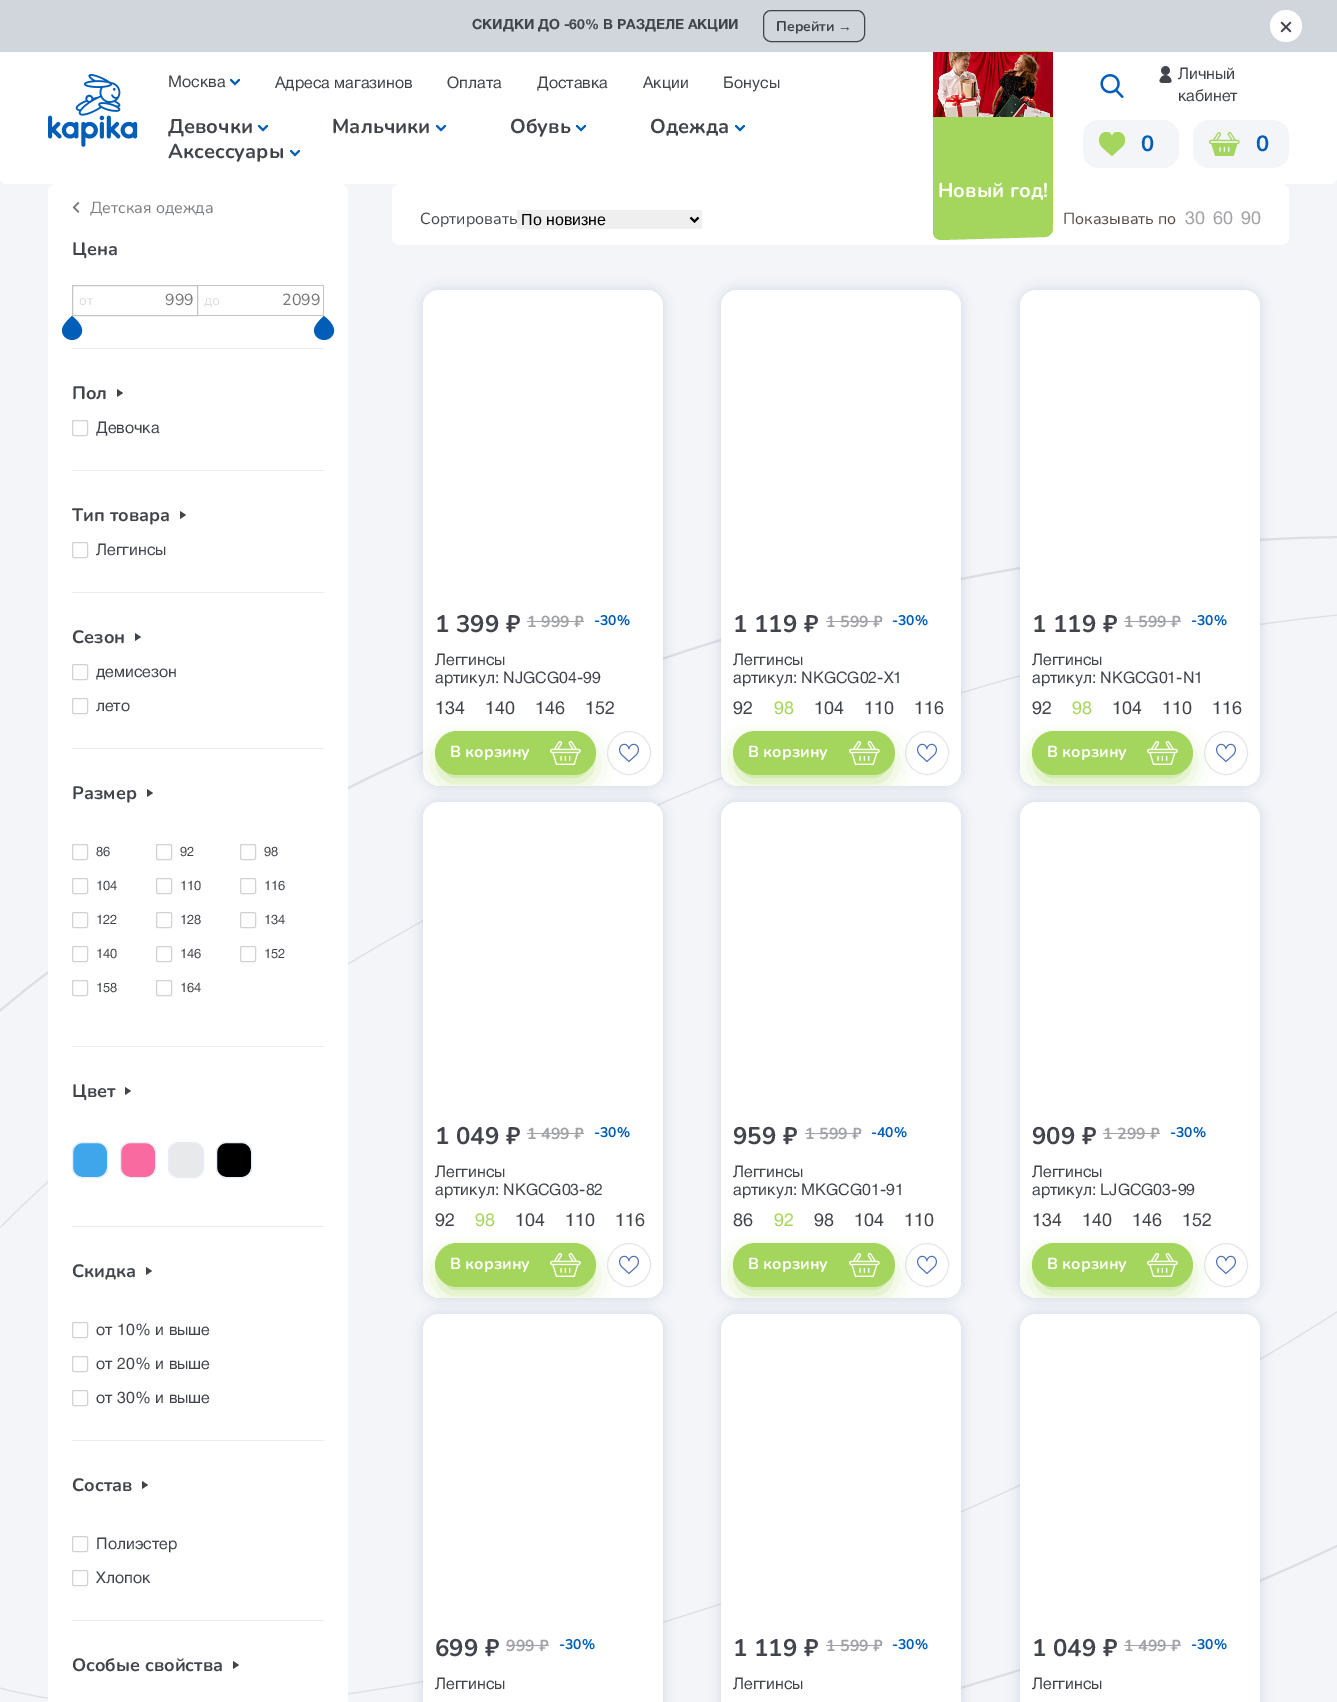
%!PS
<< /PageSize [1337 1702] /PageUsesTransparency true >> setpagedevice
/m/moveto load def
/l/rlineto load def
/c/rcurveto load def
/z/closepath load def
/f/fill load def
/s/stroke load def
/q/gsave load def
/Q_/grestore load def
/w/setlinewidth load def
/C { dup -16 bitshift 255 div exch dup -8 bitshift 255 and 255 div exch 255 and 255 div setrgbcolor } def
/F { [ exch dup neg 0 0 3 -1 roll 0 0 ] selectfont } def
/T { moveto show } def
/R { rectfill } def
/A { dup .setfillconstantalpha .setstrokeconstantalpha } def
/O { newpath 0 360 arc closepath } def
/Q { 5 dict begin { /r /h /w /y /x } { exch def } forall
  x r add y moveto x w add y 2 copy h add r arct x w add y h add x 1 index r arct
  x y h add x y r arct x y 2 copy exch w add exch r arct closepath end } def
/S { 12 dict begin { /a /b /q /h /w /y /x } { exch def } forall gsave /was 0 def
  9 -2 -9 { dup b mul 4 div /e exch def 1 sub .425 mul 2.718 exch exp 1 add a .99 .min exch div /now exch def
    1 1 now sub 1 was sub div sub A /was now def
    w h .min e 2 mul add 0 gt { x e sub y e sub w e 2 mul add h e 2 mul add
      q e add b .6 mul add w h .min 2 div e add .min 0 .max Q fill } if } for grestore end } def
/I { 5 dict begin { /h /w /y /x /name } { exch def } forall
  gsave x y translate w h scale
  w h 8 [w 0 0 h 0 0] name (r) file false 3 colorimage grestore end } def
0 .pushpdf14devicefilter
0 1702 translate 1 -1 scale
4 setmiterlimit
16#F3F5F9 C
0 0 1337 1702 R
16#D1D5DC C
0 0 1337 52 R
/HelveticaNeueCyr-Bold 14 F
16#41454B C
(СКИДКИ ДО -60% В РАЗДЕЛЕ АКЦИИ) 472 29 T
763.5 10.5 101 31 7.5 Q s
/Nunito-Bold 14 F
(Перейти) 776 31 T
/LiberationSans-Bold 14 F
(→) 838 31 T
16#FFFFFF C
1286 26 16 O f
(1.rgb) 1280 21 12 12 I
0 52 m 1337 0 l 0 125 l 0 4 -3 7 -7 7 c -1323 0 l -4 0 -7 -3 -7 -7 c z f
(2.rgb) 48 74 90 73 I
/HelveticaNeueCyr-Regular 16 F
16#41454B C
(Москва) 168 87 T
/Nunito-Bold 20 F
(Девочки) 168 133 T
16#005EB8 C
2 w
1 setlinecap
239 80 m -4 4 l -4 -4 l 267 126 m -4 4 l -4 -4 l s
/HelveticaNeueCyr-Regular 16 F
16#41454B C
(Адреса магазинов) 275 88 T
(Оплата) 447 88 T
(Доставка) 537 88 T
(Акции) 643 88 T
(Бонусы) 723 88 T
/Nunito-Bold 20 F
(Мальчики) 332 133 T
16#005EB8 C
445 126 m -4 4 l -4 -4 l s
16#41454B C
(Обувь) 510 133 T
16#005EB8 C
585 126 m -4 4 l -4 -4 l s
16#41454B C
(Одежда) 650 133 T
16#005EB8 C
744 126 m -4 4 l -4 -4 l s
16#41454B C
(Аксессуары) 168 158 T
16#005EB8 C
299 151 m -4 4 l -4 -4 l s
(3.rgb) 1100 74 24 24 I
(4.rgb) 1159 66 13 17 I
/HelveticaNeueCyr-Regular 16 F
16#41454B C
(Личный) 1178 79 T
(кабинет) 1178 101 T
16#F3F5F9 C
1083 120 96 48 16 Q f
q
1099 132 26 24 rectclip
16#A4D65E C
1112 136 m 4 -10 18.5 -.5 11 10 c -11 10 l -3.5 -3 -8.5 -7 -11 -10 c -7 -10.5 6.5 -20 11 -10 c z f
Q_
/Nunito-Bold 22 F
16#005EB8 C
(0) 1141 151 T
16#F3F5F9 C
1193 120 96 48 16 Q f
(5.rgb) 1209 132 31 24 I
16#005EB8 C
(0) 1256 151 T
16#FFFFFF C
392 184 897 61 8 Q f
16#A4D65E C
941 53 m 104 -2 l 4 0 8 3 8 7 c 0 171 l 0 4 -4 8 -8 8 c -104 3 l -4 0 -8 -3 -8 -8 c 0 -170 l 0 -5 4 -9 8 -9 c z f
(6.rgb) 933 52 120 65 I
/Nunito-Bold 20 F
16#FFFFFF C
(Новый год!) 938 197 T
16#DCDEE4 C
0 setlinecap
700 646.5 m 615 -194.5 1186 -123.5 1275.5 159 c 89 282.5 -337 669 -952.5 863.5 c -615 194.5 -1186 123.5 -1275 -159 c -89.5 -282.5 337 -669 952 -863.5 c z s
1 w
655.5 806 m 531 -232.5 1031 -263 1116 -68.5 c 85 194.5 -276.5 540.5 -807.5 773 c -531.5 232.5 -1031 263.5 -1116 69 c -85 -194.5 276.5 -541 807.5 -773.5 c z s
16#FFFFFF C
48 184 300 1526 8 Q f
(7.rgb) 72 202 8 11 I
/Nunito-Regular 16 F
16#7A7D81 C
(Детская одежда) 90 213 T
/Nunito-Bold 18 F
16#41454B C
(Цена) 72 255 T
16#C4C4C4 C
72.5 285.5 125 30 rectstroke
/Nunito-Regular 14 F
16#D9DADB C
(от) 79 305 T
/Nunito-Regular 16 F
16#757575 C
(999) 165 305 T
16#C4C4C4 C
198 285 126 1 R
323 285 1 31 R
198 315 126 1 R
/Nunito-Regular 14 F
16#D9DADB C
(до) 204 305 T
/Nunito-Regular 16 F
16#757575 C
(2099) 282 305 T
16#005EB8 C
62 330 m 0 -5.5 10 -14 10 -14 c 5.5 4.5 13.5 12 8.5 19.5 c -5.5 8 -18.5 4.5 -18.5 -5.5 c z f
314 330 m 0 -5.5 10 -14 10 -14 c 5.5 4.5 13.5 12 8.5 19.5 c -5.5 8 -18.5 4.5 -18.5 -5.5 c z f
16#EBEBEB C
72 348 252 1 R
/Nunito-Bold 18 F
16#41454B C
(Пол) 72 399 T
117 397 m 0 -8 l 6 4 l z f
16#D1D2D4 C
72.5 420.5 15 15 1.5 Q s
/HelveticaNeueCyr-Regular 16 F
16#41454B C
(Девочка) 96 433 T
16#EBEBEB C
72 470 252 1 R
/Nunito-Bold 18 F
16#41454B C
(Тип товара) 72 521 T
180 519 m 0 -8 l 6 4 l z f
16#D1D2D4 C
72.5 542.5 15 15 1.5 Q s
/HelveticaNeueCyr-Regular 16 F
16#41454B C
(Леггинсы) 96 555 T
16#EBEBEB C
72 592 252 1 R
/Nunito-Bold 18 F
16#41454B C
(Сезон) 72 643 T
135 641 m 0 -8 l 6 4 l z f
16#D1D2D4 C
72.5 664.5 15 15 1.5 Q s
/HelveticaNeueCyr-Regular 16 F
16#41454B C
(демисезон) 96 677 T
16#D1D2D4 C
72.5 698.5 15 15 1.5 Q s
16#41454B C
(лето) 96 711 T
16#EBEBEB C
72 748 252 1 R
/Nunito-Bold 18 F
16#41454B C
(Размер) 72 799 T
147 797 m 0 -8 l 6 4 l z f
16#D1D2D4 C
72.5 844.5 15 15 1.5 Q s
/HelveticaNeueCyr-Regular 13 F
16#41454B C
(86) 96 856 T
16#D1D2D4 C
156.5 844.5 15 15 1.5 Q s
16#41454B C
(92) 180 856 T
16#D1D2D4 C
240.5 844.5 15 15 1.5 Q s
16#41454B C
(98) 264 856 T
16#D1D2D4 C
72.5 878.5 15 15 1.5 Q s
16#41454B C
(104) 96 890 T
16#D1D2D4 C
156.5 878.5 15 15 1.5 Q s
16#41454B C
(110) 180 890 T
16#D1D2D4 C
240.5 878.5 15 15 1.5 Q s
16#41454B C
(116) 264 890 T
16#D1D2D4 C
72.5 912.5 15 15 1.5 Q s
16#41454B C
(122) 96 924 T
16#D1D2D4 C
156.5 912.5 15 15 1.5 Q s
16#41454B C
(128) 180 924 T
16#D1D2D4 C
240.5 912.5 15 15 1.5 Q s
16#41454B C
(134) 264 924 T
16#D1D2D4 C
72.5 946.5 15 15 1.5 Q s
16#41454B C
(140) 96 958 T
16#D1D2D4 C
156.5 946.5 15 15 1.5 Q s
16#41454B C
(146) 180 958 T
16#D1D2D4 C
240.5 946.5 15 15 1.5 Q s
16#41454B C
(152) 264 958 T
16#D1D2D4 C
72.5 980.5 15 15 1.5 Q s
16#41454B C
(158) 96 992 T
16#D1D2D4 C
156.5 980.5 15 15 1.5 Q s
16#41454B C
(164) 180 992 T
16#EBEBEB C
72 1046 252 1 R
/Nunito-Bold 18 F
16#41454B C
(Цвет) 72 1097 T
125 1095 m 0 -8 l 6 4 l z f
(8.rgb) 72 1142 36 36 I
16#E7EDF6 C
72.5 1142.5 35 35 9.5 Q s
(9.rgb) 120 1142 36 36 I
120.5 1142.5 35 35 9.5 Q s
(10.rgb) 168 1142 36 36 I
168.5 1142.5 35 35 9.5 Q s
(11.rgb) 216 1142 36 36 I
216.5 1142.5 35 35 9.5 Q s
16#EBEBEB C
72 1226 252 1 R
16#41454B C
(Скидка) 72 1277 T
146 1275 m 0 -8 l 6 4 l z f
16#D1D2D4 C
72.5 1322.5 15 15 1.5 Q s
/HelveticaNeueCyr-Regular 16 F
16#41454B C
(от 10% и выше) 96 1335 T
16#D1D2D4 C
72.5 1356.5 15 15 1.5 Q s
16#41454B C
(от 20% и выше) 96 1369 T
16#D1D2D4 C
72.5 1390.5 15 15 1.5 Q s
16#41454B C
(от 30% и выше) 96 1403 T
16#EBEBEB C
72 1440 252 1 R
/Nunito-Bold 18 F
16#41454B C
(Состав) 72 1491 T
142 1489 m 0 -8 l 6 4 l z f
16#D1D2D4 C
72.5 1536.5 15 15 1.5 Q s
/HelveticaNeueCyr-Regular 16 F
16#41454B C
(Полиэстер) 96 1549 T
16#D1D2D4 C
72.5 1570.5 15 15 1.5 Q s
16#41454B C
(Хлопок) 96 1583 T
16#EBEBEB C
72 1620 252 1 R
/Nunito-Bold 18 F
16#41454B C
(Особые свойства) 72 1671 T
233 1669 m 0 -8 l 6 4 l z f
/Nunito-Regular 16 F
(Сортировать) 420 224 T
16#EFEFEF C
517 210 185 19 R
16#000000 C
2 w
690.5 217.5 m 4 4 l 4 -4 l s
/LiberationSans-Regular 16 F
(По новизне) 521 225 T
/Nunito-Regular 16 F
16#544743 C
(Показывать по) 1063 224 T
/HelveticaNeueCyr-Regular 18 F
16#A0A2A5 C
(30) 1185 224 T
(60) 1213 224 T
(90) 1241 224 T
16#182551 C
423 290 240 496 16 6 .15 S
16#FFFFFF C
423 290 240 496 16 Q f
/Nunito-Bold 24 F
16#41454B C
(1 399 ₽) 435 632 T
/Nunito-Bold 16 F
16#A0A2A5 C
(1 999 ₽) 527 627 T
527 621 57 1 R
/Nunito-Bold 14 F
16#005EB8 C
(-30%) 594 625 T
/HelveticaNeueCyr-Regular 16 F
16#41454B C
(Леггинсы) 435 665 T
(артикул: NJGCG04-99) 435 683 T
16#182551 C
423 802 240 496 16 6 .15 S
16#FFFFFF C
423 802 240 496 16 Q f
q
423 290 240 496 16 Q clip newpath
16#A4D65E C
445 751 141 24 12 12.5 1 S
Q_
/HelveticaNeueCyr-Regular 18 F
16#41454B C
(134) 435 714 T
(140) 485 714 T
(146) 535 714 T
(152) 585 714 T
16#A4D65E C
435 731 161 44 22 Q f
/Nunito-Bold 16 F
16#FFFFFF C
(В корзину) 450 757 T
(12.rgb) 550 741 31 24 I
0.2 A
16#80828E C
1 w
629 753 21.5 O s
1 A
(13.rgb) 619 743 20 20 I
16#182551 C
721 290 240 496 16 6 .15 S
16#FFFFFF C
721 290 240 496 16 Q f
/Nunito-Bold 24 F
16#41454B C
(1 119 ₽) 733 632 T
/Nunito-Bold 16 F
16#A0A2A5 C
(1 599 ₽) 826 627 T
826 621 56 1 R
/Nunito-Bold 14 F
16#005EB8 C
(-30%) 892 625 T
/HelveticaNeueCyr-Regular 16 F
16#41454B C
(Леггинсы) 733 665 T
(артикул: NKGCG02-X1) 733 683 T
16#182551 C
721 802 240 496 16 6 .15 S
16#FFFFFF C
721 802 240 496 16 Q f
q
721 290 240 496 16 Q clip newpath
16#A4D65E C
743 751 142 24 12 12.5 1 S
Q_
/HelveticaNeueCyr-Regular 18 F
16#41454B C
(92) 733 714 T
16#A4D65E C
(98) 774 714 T
16#41454B C
(104) 814 714 T
(110) 864 714 T
(116) 914 714 T
16#A4D65E C
733 731 162 44 22 Q f
/Nunito-Bold 16 F
16#FFFFFF C
(В корзину) 748 757 T
(12.rgb) 849 741 31 24 I
0.2 A
16#80828E C
927 753 21.5 O s
1 A
(14.rgb) 917 743 20 20 I
16#182551 C
1020 290 240 496 16 6 .15 S
16#FFFFFF C
1020 290 240 496 16 Q f
/Nunito-Bold 24 F
16#41454B C
(1 119 ₽) 1032 632 T
/Nunito-Bold 16 F
16#A0A2A5 C
(1 599 ₽) 1124 627 T
1124 621 57 1 R
/Nunito-Bold 14 F
16#005EB8 C
(-30%) 1191 625 T
/HelveticaNeueCyr-Regular 16 F
16#41454B C
(Леггинсы) 1032 665 T
(артикул: NKGCG01-N1) 1032 683 T
16#182551 C
1020 802 240 496 16 6 .15 S
16#FFFFFF C
1020 802 240 496 16 Q f
q
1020 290 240 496 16 Q clip newpath
16#A4D65E C
1042 751 141 24 12 12.5 1 S
Q_
/HelveticaNeueCyr-Regular 18 F
16#41454B C
(92) 1032 714 T
16#A4D65E C
(98) 1072 714 T
16#41454B C
(104) 1112 714 T
(110) 1162 714 T
(116) 1212 714 T
16#A4D65E C
1032 731 161 44 22 Q f
/Nunito-Bold 16 F
16#FFFFFF C
(В корзину) 1047 757 T
(12.rgb) 1147 741 31 24 I
0.2 A
16#80828E C
1226 753 21.5 O s
1 A
(13.rgb) 1216 743 20 20 I
/Nunito-Bold 24 F
16#41454B C
(1 049 ₽) 435 1144 T
/Nunito-Bold 16 F
16#A0A2A5 C
(1 499 ₽) 527 1139 T
527 1133 57 1 R
/Nunito-Bold 14 F
16#005EB8 C
(-30%) 594 1137 T
/HelveticaNeueCyr-Regular 16 F
16#41454B C
(Леггинсы) 435 1177 T
(артикул: NKGCG03-82) 435 1195 T
16#182551 C
423 1314 240 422 16 6 .15 S
16#FFFFFF C
423 1314 240 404 16 Q f
q
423 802 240 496 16 Q clip newpath
16#A4D65E C
445 1263 141 24 12 12.5 1 S
Q_
/HelveticaNeueCyr-Regular 18 F
16#41454B C
(92) 435 1226 T
16#A4D65E C
(98) 475 1226 T
16#41454B C
(104) 515 1226 T
(110) 565 1226 T
(116) 615 1226 T
16#A4D65E C
435 1243 161 44 22 Q f
/Nunito-Bold 16 F
16#FFFFFF C
(В корзину) 450 1269 T
(12.rgb) 550 1253 31 24 I
0.2 A
16#80828E C
629 1265 21.5 O s
1 A
(13.rgb) 619 1255 20 20 I
/Nunito-Bold 24 F
16#41454B C
(959 ₽) 733 1144 T
/Nunito-Bold 16 F
16#A0A2A5 C
(1 599 ₽) 805 1139 T
805 1133 56 1 R
/Nunito-Bold 14 F
16#005EB8 C
(-40%) 871 1137 T
/HelveticaNeueCyr-Regular 16 F
16#41454B C
(Леггинсы) 733 1177 T
(артикул: MKGCG01-91) 733 1195 T
16#182551 C
721 1314 240 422 16 6 .15 S
16#FFFFFF C
721 1314 240 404 16 Q f
q
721 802 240 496 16 Q clip newpath
16#A4D65E C
743 1263 142 24 12 12.5 1 S
Q_
/HelveticaNeueCyr-Regular 18 F
16#41454B C
(86) 733 1226 T
16#A4D65E C
(92) 774 1226 T
16#41454B C
(98) 814 1226 T
(104) 854 1226 T
(110) 904 1226 T
16#A4D65E C
733 1243 162 44 22 Q f
/Nunito-Bold 16 F
16#FFFFFF C
(В корзину) 748 1269 T
(12.rgb) 849 1253 31 24 I
0.2 A
16#80828E C
927 1265 21.5 O s
1 A
(14.rgb) 917 1255 20 20 I
/Nunito-Bold 24 F
16#41454B C
(909 ₽) 1032 1144 T
/Nunito-Bold 16 F
16#A0A2A5 C
(1 299 ₽) 1103 1139 T
1103 1133 57 1 R
/Nunito-Bold 14 F
16#005EB8 C
(-30%) 1170 1137 T
/HelveticaNeueCyr-Regular 16 F
16#41454B C
(Леггинсы) 1032 1177 T
(артикул: LJGCG03-99) 1032 1195 T
16#182551 C
1020 1314 240 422 16 6 .15 S
16#FFFFFF C
1020 1314 240 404 16 Q f
q
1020 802 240 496 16 Q clip newpath
16#A4D65E C
1042 1263 141 24 12 12.5 1 S
Q_
/HelveticaNeueCyr-Regular 18 F
16#41454B C
(134) 1032 1226 T
(140) 1082 1226 T
(146) 1132 1226 T
(152) 1182 1226 T
16#A4D65E C
1032 1243 161 44 22 Q f
/Nunito-Bold 16 F
16#FFFFFF C
(В корзину) 1047 1269 T
(12.rgb) 1147 1253 31 24 I
0.2 A
16#80828E C
1226 1265 21.5 O s
1 A
(13.rgb) 1216 1255 20 20 I
/Nunito-Bold 24 F
16#41454B C
(699 ₽) 435 1656 T
/Nunito-Bold 16 F
16#A0A2A5 C
(999 ₽) 506 1651 T
506 1645 43 1 R
/Nunito-Bold 14 F
16#005EB8 C
(-30%) 559 1649 T
/HelveticaNeueCyr-Regular 16 F
16#41454B C
(Леггинсы) 435 1689 T
/Nunito-Bold 24 F
(1 119 ₽) 733 1656 T
/Nunito-Bold 16 F
16#A0A2A5 C
(1 599 ₽) 826 1651 T
826 1645 56 1 R
/Nunito-Bold 14 F
16#005EB8 C
(-30%) 892 1649 T
/HelveticaNeueCyr-Regular 16 F
16#41454B C
(Леггинсы) 733 1689 T
/Nunito-Bold 24 F
(1 049 ₽) 1032 1656 T
/Nunito-Bold 16 F
16#A0A2A5 C
(1 499 ₽) 1124 1651 T
1124 1645 57 1 R
/Nunito-Bold 14 F
16#005EB8 C
(-30%) 1191 1649 T
/HelveticaNeueCyr-Regular 16 F
16#41454B C
(Леггинсы) 1032 1689 T
.poppdf14devicefilter showpage
